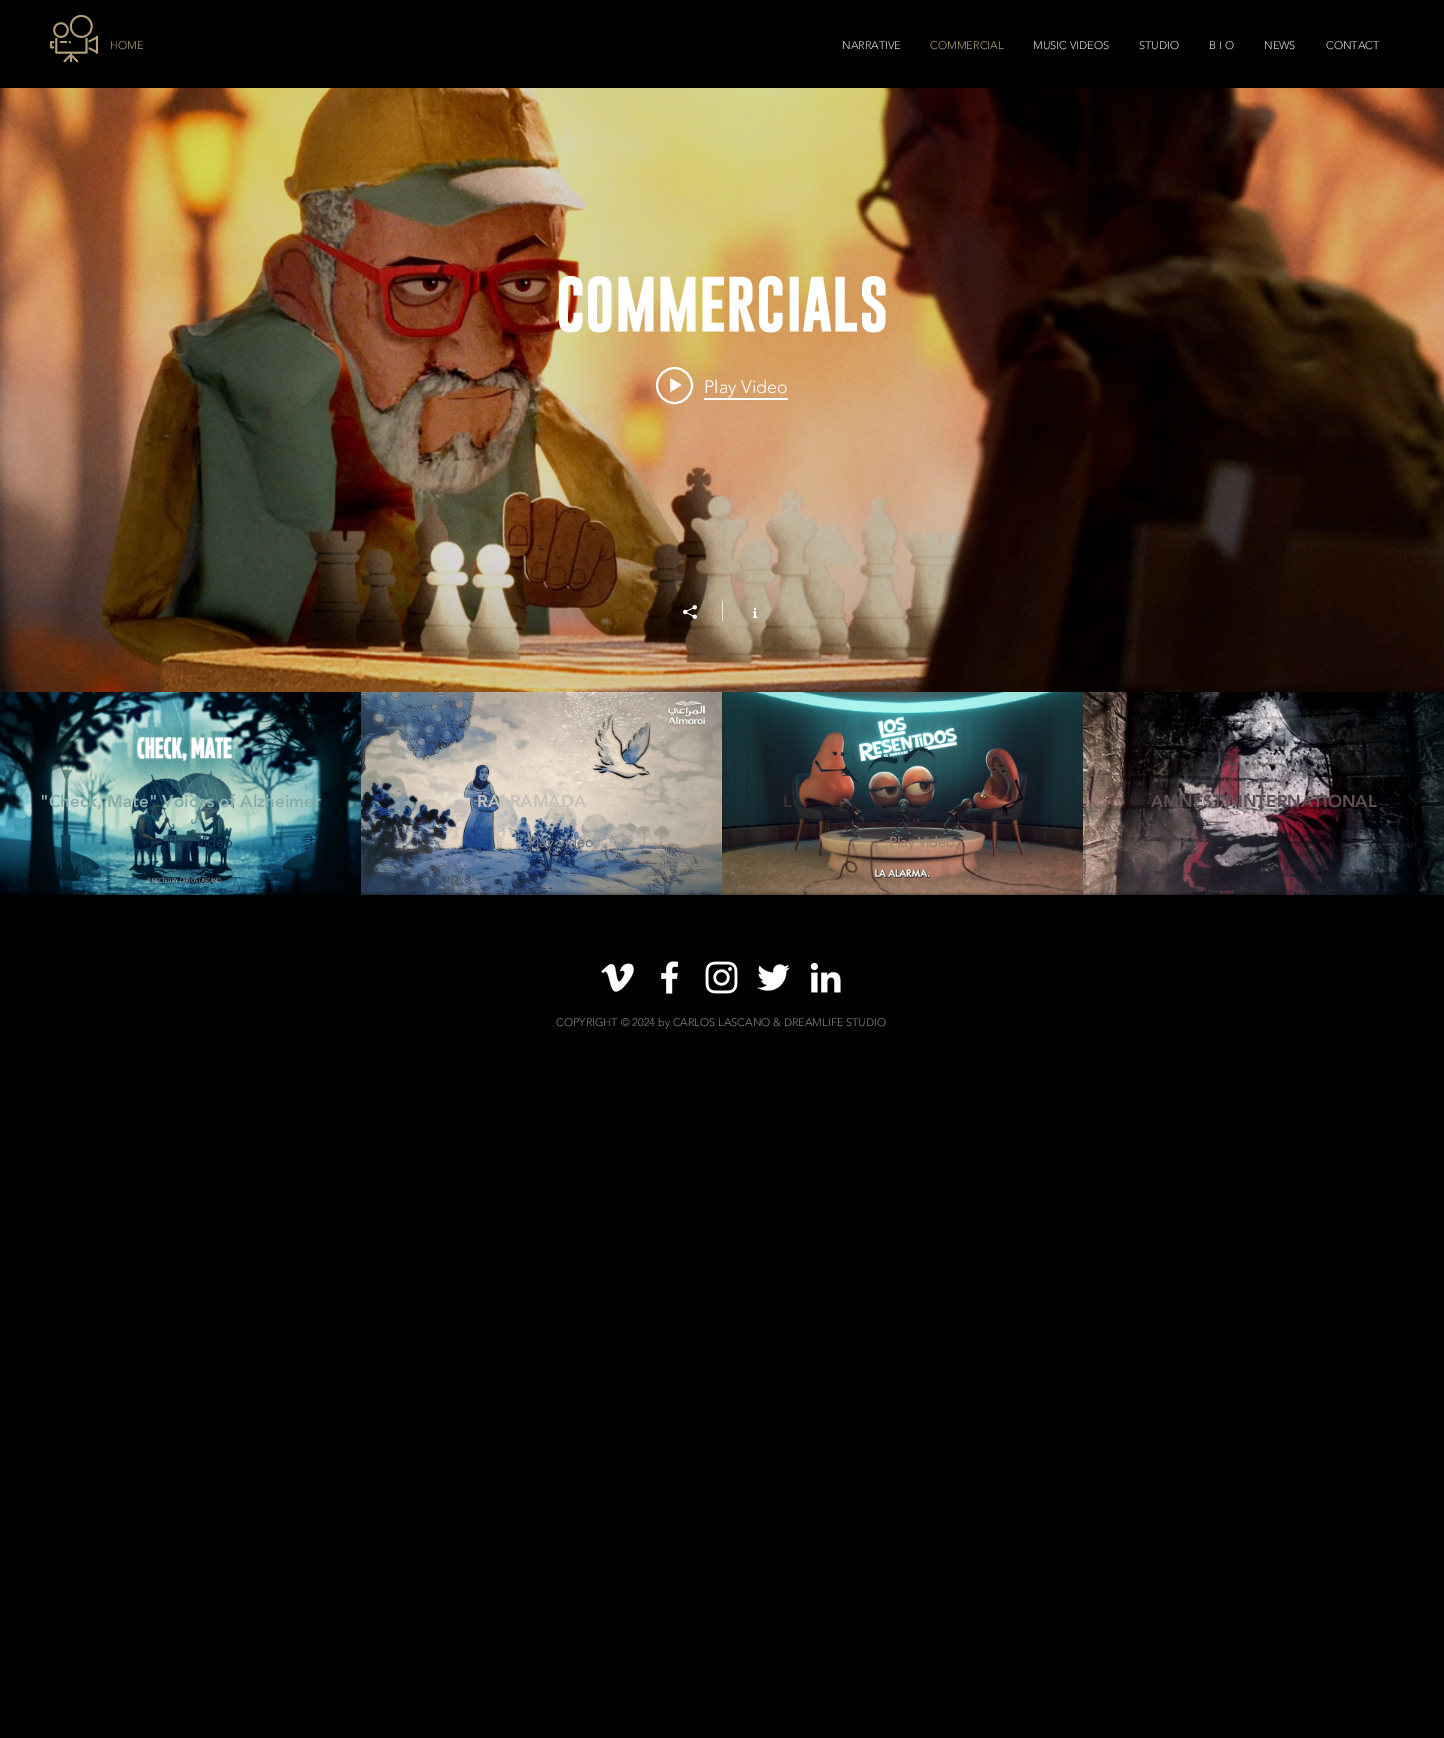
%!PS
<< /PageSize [1444 1738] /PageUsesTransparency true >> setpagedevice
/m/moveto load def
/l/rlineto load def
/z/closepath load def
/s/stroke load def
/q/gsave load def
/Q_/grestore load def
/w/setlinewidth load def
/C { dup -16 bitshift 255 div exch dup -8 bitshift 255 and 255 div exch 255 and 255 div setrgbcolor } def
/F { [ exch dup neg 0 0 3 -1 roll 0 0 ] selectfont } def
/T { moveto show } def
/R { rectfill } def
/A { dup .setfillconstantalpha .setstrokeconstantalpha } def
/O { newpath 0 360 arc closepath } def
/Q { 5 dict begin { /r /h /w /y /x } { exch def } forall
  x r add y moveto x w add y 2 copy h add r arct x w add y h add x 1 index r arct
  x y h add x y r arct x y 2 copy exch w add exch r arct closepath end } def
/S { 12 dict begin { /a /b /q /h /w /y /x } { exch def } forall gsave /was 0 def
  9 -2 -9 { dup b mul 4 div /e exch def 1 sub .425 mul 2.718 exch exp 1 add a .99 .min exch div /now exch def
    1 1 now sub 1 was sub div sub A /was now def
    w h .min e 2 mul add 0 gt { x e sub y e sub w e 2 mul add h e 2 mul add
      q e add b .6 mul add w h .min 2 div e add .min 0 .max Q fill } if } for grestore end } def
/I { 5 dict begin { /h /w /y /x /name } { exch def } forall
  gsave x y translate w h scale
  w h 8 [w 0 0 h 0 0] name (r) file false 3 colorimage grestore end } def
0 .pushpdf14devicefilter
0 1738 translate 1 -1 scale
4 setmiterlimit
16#000000 C
0 0 1444 1738 R
(1.rgb) 50 14 48 49 I
/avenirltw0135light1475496-Light 11 F
16#B39F79 C
(HOME) 110 49 T
16#DBD9D7 C
(NARRATIVE) 842 49 T
16#B39F79 C
(COMMERCIAL) 930 49 T
16#DBD9D7 C
(MUSIC VIDEOS) 1033 49 T
(STUDIO) 1139 49 T
(B I O) 1209 49 T
(NEWS) 1264 49 T
(CONTACT) 1326 49 T
(2.rgb) 0 88 1444 604 I
(3.rgb) 167 90 722 590 I
/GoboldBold-Bold 56 F
16#FFFFFF C
(COMMERCIALS) 556 331 T
2 w
674.5 385.5 17.5 O s
(4.rgb) 670 378 12 14 I
704 398 84 2 R
/avenirltw0135light1475496-Light 18 F
(Play Video) 704 393 T
(5.rgb) 683 605 14 14 I
0.7 A
722 601 1 20 R
1 A
(6.rgb) 753 608 4 10 I
(7.rgb) 0 692 361 203 I
/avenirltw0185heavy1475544-Black 17 F
16#88AEAA C
("Check, Mate" Voices of Alzheimer) 40 807 T
/avenirltw0135light1475496-Bold 14 F
16#163851 C
(Play Video) 167 847 T
(8.rgb) 361 692 361 203 I
/avenirltw0185heavy1475544-Black 17 F
16#C6C0B9 C
(RAI RAMADA) 477 807 T
/avenirltw0135light1475496-Bold 14 F
16#6D798C C
(Play Video) 528 847 T
(9.rgb) 722 692 361 203 I
/avenirltw0185heavy1475544-Black 17 F
16#3B2D2F C
(L) 783 807 T
/avenirltw0135light1475496-Bold 14 F
16#9C7F6B C
(Play Video) 889 847 T
(10.rgb) 1083 692 361 203 I
/avenirltw0185heavy1475544-Black 17 F
16#5F4F56 C
(AMNESTY INTERNATIONAL) 1151 807 T
q
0 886 m 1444 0 l 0 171 l -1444 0 l z 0 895 m 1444 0 l 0 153 l -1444 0 l z eoclip newpath
16#000000 C
0 895 1444 153 0 2.5 .7 S
Q_
(11.rgb) 601 963 33 29 I
(12.rgb) 661 961 18 33 I
(13.rgb) 705 961 33 33 I
(14.rgb) 757 964 33 27 I
(15.rgb) 810 962 31 31 I
/avenirltw0135light1475496-Light 11 F
16#87837E C
(COPYRIGHT © 2024 by CARLOS LASCANO & DREAMLIFE STUDIO) 556 1026 T
.poppdf14devicefilter showpage
